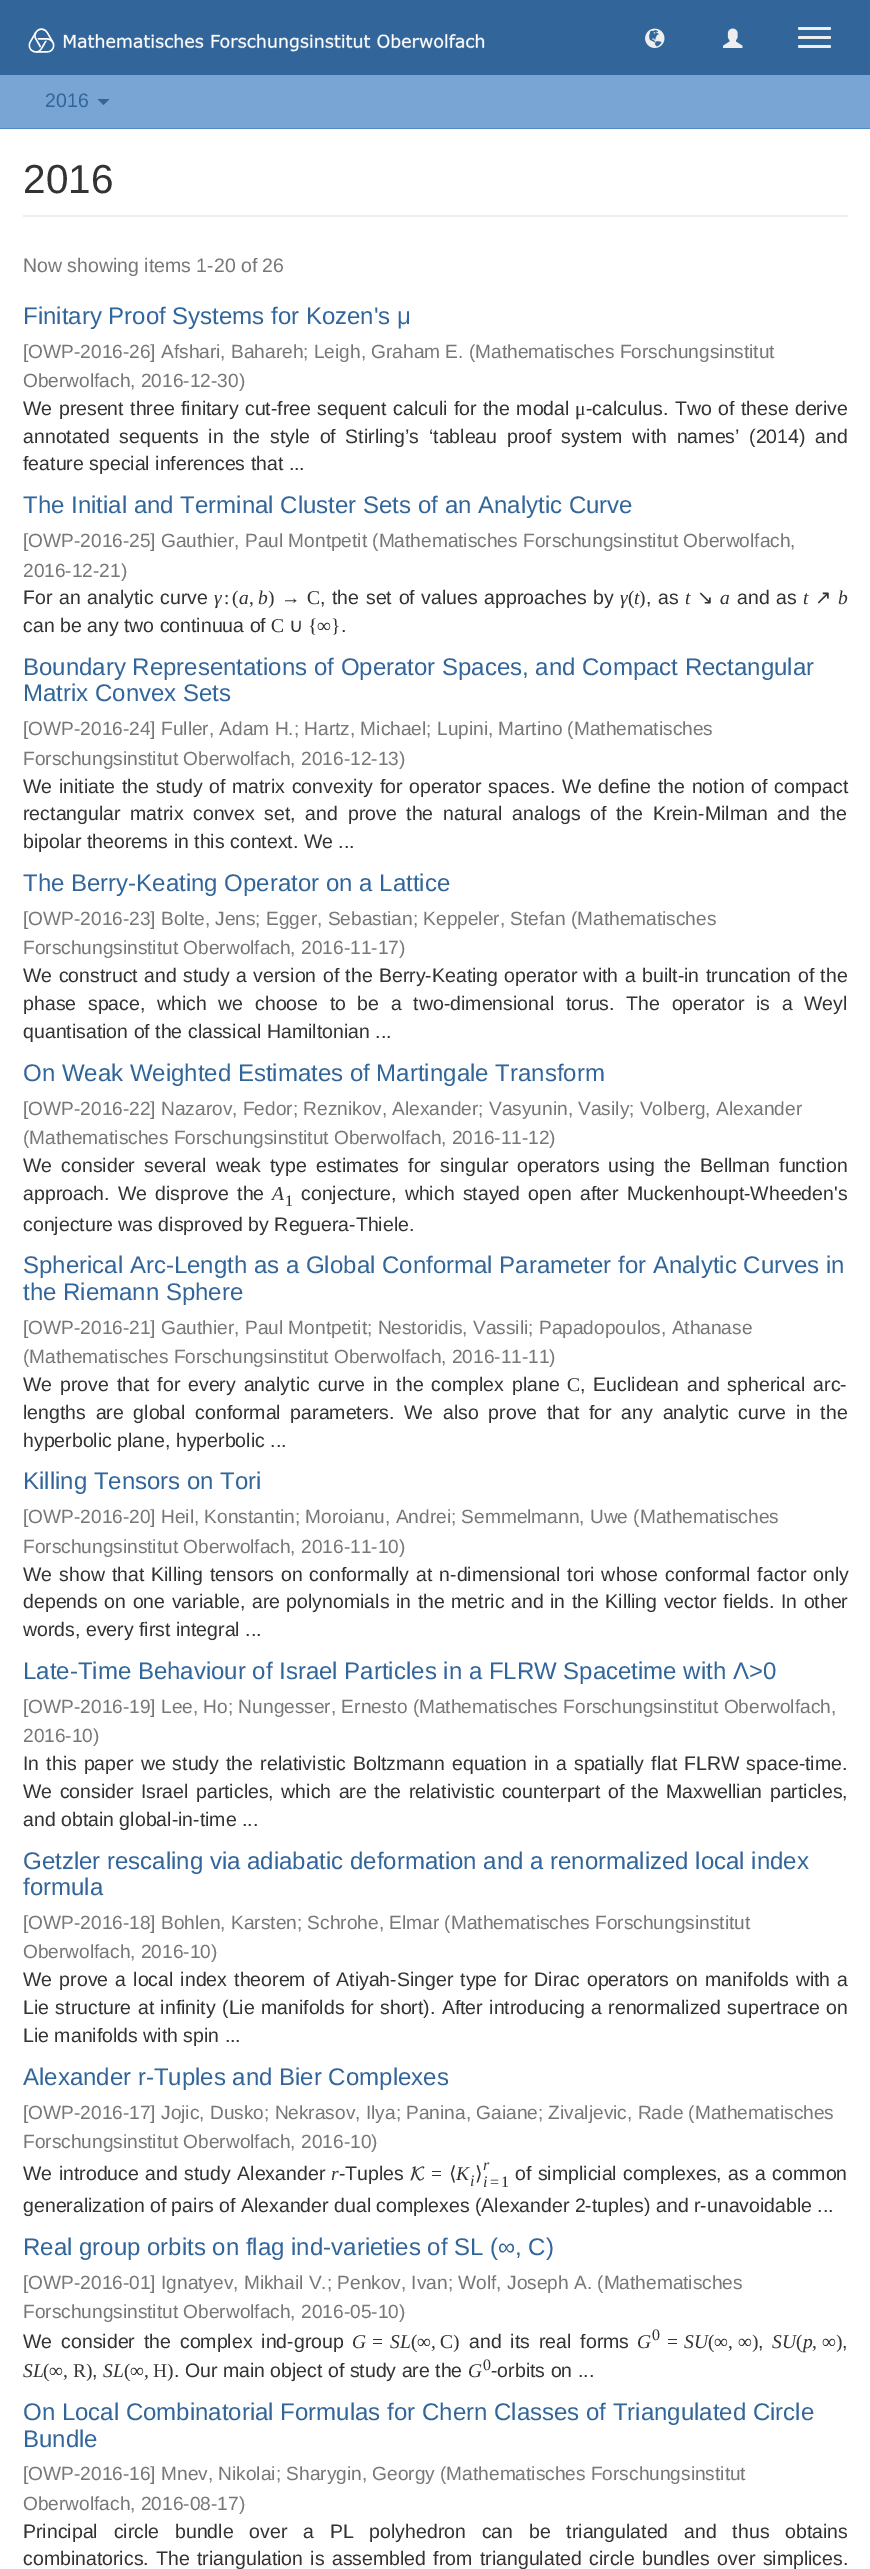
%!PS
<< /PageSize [870 2569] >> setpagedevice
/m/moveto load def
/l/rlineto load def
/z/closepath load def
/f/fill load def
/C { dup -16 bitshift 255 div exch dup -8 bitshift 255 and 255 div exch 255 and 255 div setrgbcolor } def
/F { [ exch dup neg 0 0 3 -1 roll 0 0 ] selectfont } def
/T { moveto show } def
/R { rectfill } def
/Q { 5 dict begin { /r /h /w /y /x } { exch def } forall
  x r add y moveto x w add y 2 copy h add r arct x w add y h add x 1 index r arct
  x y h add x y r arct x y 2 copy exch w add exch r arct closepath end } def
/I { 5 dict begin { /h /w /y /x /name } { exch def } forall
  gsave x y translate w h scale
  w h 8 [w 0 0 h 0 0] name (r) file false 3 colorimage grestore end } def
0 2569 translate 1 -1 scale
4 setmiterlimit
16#78A5D3 C
0 0 870 2569 R
16#326599 C
0 0 870 75 R
(1.rgb) 28 28 457 25 I
(2.rgb) 645 28 20 20 I
(3.rgb) 723 28 20 20 I
16#EEEEEE C
798 27 33 3 1.5 Q f
798 36 33 3 1.5 Q f
798 45 33 3 1.5 Q f
16#518BC6 C
0 128 870 1 R
/LiberationSans-Regular 19.5 F
16#326599 C
(2016) 45 107 T
97.5 99 m 12 0 l -6 6 l z f
16#FFFFFF C
0 129 870 2440 R
16#EEEEEE C
23 215 825 2 R
/LiberationSans-Regular 40.5 F
16#333333 C
(2016) 23 193 T
/LiberationSans-Regular 19.5 F
16#777777 C
(Now showing items 1-20 of 26) 23 272 T
/LiberationSans-Regular 24 F
16#326599 C
(Finitary Proof Systems for Kozen's μ) 23 324 T
/LiberationSans-Regular 19.1 F
16#777777 C
([OWP-2016-26] Afshari, Bahareh; Leigh, Graham E. \(Mathematisches Forschungsinstitut) 23 358 T
(Oberwolfach, 2016-12-30\)) 23 387 T
/LiberationSans-Regular 19.5 F
16#333333 C
23 415 m 1 0 32 (We present three finitary cut-free sequent calculi for the modal) widthshow
/LiberationSerif-Regular 19.5 F
(μ) 575 415 T
/LiberationSans-Regular 19.5 F
586 415 m 1 0 32 (-calculus. Two of these derive) widthshow
23 443 m 4.25 0 32 (annotated sequents in the style of Stirling’s ‘tableau proof system with names’ \(2014\) and) widthshow
(feature special inferences that ...) 23 470 T
/LiberationSans-Regular 24 F
16#326599 C
(The Initial and Terminal Cluster Sets of an Analytic Curve) 23 513 T
/LiberationSans-Regular 19.1 F
16#777777 C
([OWP-2016-25] Gauthier, Paul Montpetit \(Mathematisches Forschungsinstitut Oberwolfach,) 23 547 T
(2016-12-21\)) 23 577 T
/LiberationSans-Regular 19.5 F
16#333333 C
23 604 m 1.25 0 32 (For an analytic curve) widthshow
/LiberationSerif-Italic 19.5 F
(γ) 214 604 T
/LiberationSerif-Regular 19.5 F
(:) 224 604 T
(\() 232 604 T
/LiberationSerif-Italic 19.5 F
(a) 239 604 T
(b) 258 604 T
/LiberationSerif-Regular 19.5 F
(\)) 268 604 T
(→) 281 604 T
(C) 307 604 T
(,) 249 604 T
/LiberationSans-Regular 19.5 F
320 604 m 1.25 0 32 (, the set of values approaches by) widthshow
/LiberationSerif-Italic 19.5 F
(γ) 620 604 T
/LiberationSerif-Regular 19.5 F
(\() 628 604 T
/LiberationSerif-Italic 19.5 F
(t) 634 604 T
/LiberationSerif-Regular 19.5 F
(\)) 639 604 T
/LiberationSans-Regular 19.5 F
646 604 m 1.25 0 32 (, as) widthshow
/LiberationSerif-Italic 19.5 F
(t) 685 604 T
/DejaVuSans-Regular 19.5 F
(↘) 697 604 T
/LiberationSerif-Italic 19.5 F
(a) 720 604 T
/LiberationSans-Regular 19.5 F
737 604 m 1.25 0 32 (and as) widthshow
/LiberationSerif-Italic 19.5 F
(t) 803 604 T
/DejaVuSans-Regular 19.5 F
(↗) 815 604 T
/LiberationSerif-Italic 19.5 F
(b) 838 604 T
/LiberationSans-Regular 19.5 F
(can be any two continuua of) 23 632 T
/LiberationSerif-Regular 19.5 F
(C) 271 632 T
/DejaVuSans-Regular 19.5 F
(∪) 289 632 T
/LiberationSerif-Regular 19.5 F
({∞}) 308 632 T
/LiberationSans-Regular 19.5 F
(.) 341 632 T
/LiberationSans-Regular 24 F
16#326599 C
(Boundary Representations of Operator Spaces, and Compact Rectangular) 23 675 T
(Matrix Convex Sets) 23 701 T
/LiberationSans-Regular 19.1 F
16#777777 C
([OWP-2016-24] Fuller, Adam H.; Hartz, Michael; Lupini, Martino \(Mathematisches) 23 735 T
(Forschungsinstitut Oberwolfach, 2016-12-13\)) 23 765 T
/LiberationSans-Regular 19.5 F
16#333333 C
23 793 m 1.25 0 32 (We initiate the study of matrix convexity for operator spaces. We define the notion of compact) widthshow
23 820 m 4.25 0 32 (rectangular matrix convex set, and prove the natural analogs of the Krein-Milman and the) widthshow
(bipolar theorems in this context. We ...) 23 848 T
/LiberationSans-Regular 24 F
16#326599 C
(The Berry-Keating Operator on a Lattice) 23 891 T
/LiberationSans-Regular 19.1 F
16#777777 C
([OWP-2016-23] Bolte, Jens; Egger, Sebastian; Keppeler, Stefan \(Mathematisches) 23 925 T
(Forschungsinstitut Oberwolfach, 2016-11-17\)) 23 954 T
/LiberationSans-Regular 19.5 F
16#333333 C
23 982 m 1 0 32 (We construct and study a version of the Berry-Keating operator with a built-in truncation of the) widthshow
23 1010 m 6.25 0 32 (phase space, which we choose to be a two-dimensional torus. The operator is a Weyl) widthshow
(quantisation of the classical Hamiltonian ...) 23 1038 T
/LiberationSans-Regular 24 F
16#326599 C
(On Weak Weighted Estimates of Martingale Transform) 23 1081 T
/LiberationSans-Regular 19.1 F
16#777777 C
([OWP-2016-22] Nazarov, Fedor; Reznikov, Alexander; Vasyunin, Vasily; Volberg, Alexander) 23 1115 T
(\(Mathematisches Forschungsinstitut Oberwolfach, 2016-11-12\)) 23 1144 T
/LiberationSans-Regular 19.5 F
16#333333 C
23 1172 m 3.5 0 32 (We consider several weak type estimates for singular operators using the Bellman function) widthshow
23 1200 m 2.75 0 32 (approach. We disprove the) widthshow
/LiberationSerif-Italic 19.5 F
(A) 272 1200 T
/LiberationSerif-Regular 16 F
(1) 285 1206 T
/LiberationSans-Regular 19.5 F
301 1200 m 2.75 0 32 (conjecture, which stayed open after Muckenhoupt-Wheeden's) widthshow
(conjecture was disproved by Reguera-Thiele.) 23 1231 T
/LiberationSans-Regular 24 F
16#326599 C
(Spherical Arc-Length as a Global Conformal Parameter for Analytic Curves in) 23 1273 T
(the Riemann Sphere) 23 1300 T
/LiberationSans-Regular 19.1 F
16#777777 C
([OWP-2016-21] Gauthier, Paul Montpetit; Nestoridis, Vassili; Papadopoulos, Athanase) 23 1334 T
(\(Mathematisches Forschungsinstitut Oberwolfach, 2016-11-11\)) 23 1363 T
/LiberationSans-Regular 19.5 F
16#333333 C
23 1391 m 2.5 0 32 (We prove that for every analytic curve in the complex plane) widthshow
/LiberationSerif-Regular 19.5 F
(C) 567 1391 T
/LiberationSans-Regular 19.5 F
580 1391 m 2.5 0 32 (, Euclidean and spherical arc-) widthshow
23 1419 m 4.25 0 32 (lengths are global conformal parameters. We also prove that for any analytic curve in the) widthshow
(hyperbolic plane, hyperbolic ...) 23 1447 T
/LiberationSans-Regular 24 F
16#326599 C
(Killing Tensors on Tori) 23 1489 T
/LiberationSans-Regular 19.1 F
16#777777 C
([OWP-2016-20] Heil, Konstantin; Moroianu, Andrei; Semmelmann, Uwe \(Mathematisches) 23 1523 T
(Forschungsinstitut Oberwolfach, 2016-11-10\)) 23 1553 T
/LiberationSans-Regular 19.5 F
16#333333 C
23 1581 m 1.5 0 32 (We show that Killing tensors on conformally at n-dimensional tori whose conformal factor only) widthshow
23 1608 m 1.1 0 32 (depends on one variable, are polynomials in the metric and in the Killing vector fields. In other) widthshow
(words, every first integral ...) 23 1636 T
/LiberationSans-Regular 24 F
16#326599 C
(Late-Time Behaviour of Israel Particles in a FLRW Spacetime with Λ>0) 23 1679 T
/LiberationSans-Regular 19.1 F
16#777777 C
([OWP-2016-19] Lee, Ho; Nungesser, Ernesto \(Mathematisches Forschungsinstitut Oberwolfach,) 23 1713 T
(2016-10\)) 23 1742 T
/LiberationSans-Regular 19.5 F
16#333333 C
23 1770 m 1.6 0 32 (In this paper we study the relativistic Boltzmann equation in a spatially flat FLRW space-time.) widthshow
23 1798 m 2 0 32 (We consider Israel particles, which are the relativistic counterpart of the Maxwellian particles,) widthshow
(and obtain global-in-time ...) 23 1826 T
/LiberationSans-Regular 24 F
16#326599 C
(Getzler rescaling via adiabatic deformation and a renormalized local index) 23 1869 T
(formula) 23 1895 T
/LiberationSans-Regular 19.1 F
16#777777 C
([OWP-2016-18] Bohlen, Karsten; Schrohe, Elmar \(Mathematisches Forschungsinstitut) 23 1929 T
(Oberwolfach, 2016-10\)) 23 1958 T
/LiberationSans-Regular 19.5 F
16#333333 C
23 1986 m 1.7 0 32 (We prove a local index theorem of Atiyah-Singer type for Dirac operators on manifolds with a) widthshow
23 2014 m 1 0 32 (Lie structure at infinity \(Lie manifolds for short\). After introducing a renormalized supertrace on) widthshow
(Lie manifolds with spin ...) 23 2042 T
/LiberationSans-Regular 24 F
16#326599 C
(Alexander r-Tuples and Bier Complexes) 23 2085 T
/LiberationSans-Regular 19.1 F
16#777777 C
([OWP-2016-17] Jojic, Dusko; Nekrasov, Ilya; Panina, Gaiane; Zivaljevic, Rade \(Mathematisches) 23 2119 T
(Forschungsinstitut Oberwolfach, 2016-10\)) 23 2148 T
/LiberationSans-Regular 19.5 F
16#333333 C
23 2180 m 1 0 32 (We introduce and study Alexander) widthshow
/LiberationSerif-Italic 19.5 F
(r) 331 2180 T
/LiberationSans-Regular 19.5 F
(-Tuples) 339 2180 T
/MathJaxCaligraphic-Regular 19.5 F
(K) 410 2180 T
/LiberationSerif-Regular 19.5 F
(=) 431 2180 T
/DejaVuSans-Regular 19.5 F
(⟨) 449 2180 T
/LiberationSerif-Italic 19.5 F
(K) 456 2180 T
/LiberationSerif-Italic 16 F
(i) 470 2186 T
/DejaVuSans-Regular 19.5 F
(⟩) 475 2180 T
/LiberationSerif-Italic 16 F
(r) 483 2170 T
(i) 483 2187 T
/LiberationSerif-Regular 16 F
(=) 490 2187 T
(1) 501 2187 T
/LiberationSans-Regular 19.5 F
515 2180 m 1 0 32 (of simplicial complexes, as a common) widthshow
(generalization of pairs of Alexander dual complexes \(Alexander 2-tuples\) and r-unavoidable ...) 23 2212 T
/LiberationSans-Regular 24 F
16#326599 C
(Real group orbits on flag ind-varieties of SL \(∞, C\)) 23 2255 T
/LiberationSans-Regular 19.1 F
16#777777 C
([OWP-2016-01] Ignatyev, Mikhail V.; Penkov, Ivan; Wolf, Joseph A. \(Mathematisches) 23 2289 T
(Forschungsinstitut Oberwolfach, 2016-05-10\)) 23 2318 T
/LiberationSans-Regular 19.5 F
16#333333 C
23 2348 m 3.5 0 32 (We consider the complex ind-group) widthshow
/LiberationSerif-Italic 19.5 F
(G) 352 2348 T
/LiberationSerif-Regular 19.5 F
(=) 372 2348 T
/LiberationSerif-Italic 19.5 F
(SL) 390 2348 T
/LiberationSerif-Regular 19.5 F
(\(∞,) 411 2348 T
(C\)) 440 2348 T
/LiberationSans-Regular 19.5 F
469 2348 m 3.5 0 32 (and its real forms) widthshow
/LiberationSerif-Italic 19.5 F
(G) 637 2348 T
/LiberationSerif-Regular 16 F
(0) 652 2340 T
/LiberationSerif-Regular 19.5 F
(=) 667 2348 T
/LiberationSerif-Italic 19.5 F
(SU) 684 2348 T
/LiberationSerif-Regular 19.5 F
(\(∞,) 708 2348 T
(∞\)) 738 2348 T
/LiberationSans-Regular 19.5 F
(,) 758 2348 T
/LiberationSerif-Italic 19.5 F
(SU) 772 2348 T
/LiberationSerif-Regular 19.5 F
(\() 796 2348 T
/LiberationSerif-Italic 19.5 F
(p) 803 2348 T
/LiberationSerif-Regular 19.5 F
(,) 812 2348 T
(∞\)) 822 2348 T
/LiberationSans-Regular 19.5 F
(,) 842 2348 T
/LiberationSerif-Italic 19.5 F
(SL) 23 2377 T
/LiberationSerif-Regular 19.5 F
(\(∞,) 43 2377 T
(R\)) 73 2377 T
/LiberationSans-Regular 19.5 F
(,) 92 2377 T
/LiberationSerif-Italic 19.5 F
(SL) 103 2377 T
/LiberationSerif-Regular 19.5 F
(\(∞,) 124 2377 T
(H\)) 153 2377 T
/LiberationSans-Regular 19.5 F
(. Our main object of study are the) 174 2377 T
/LiberationSerif-Italic 19.5 F
(G) 468 2377 T
/LiberationSerif-Regular 16 F
(0) 483 2370 T
/LiberationSans-Regular 19.5 F
(-orbits on ...) 491 2377 T
/LiberationSans-Regular 24 F
16#326599 C
(On Local Combinatorial Formulas for Chern Classes of Triangulated Circle) 23 2420 T
(Bundle) 23 2447 T
/LiberationSans-Regular 19.1 F
16#777777 C
([OWP-2016-16] Mnev, Nikolai; Sharygin, Georgy \(Mathematisches Forschungsinstitut) 23 2480 T
(Oberwolfach, 2016-08-17\)) 23 2510 T
/LiberationSans-Regular 19.5 F
16#333333 C
23 2538 m 10.4 0 32 (Principal circle bundle over a PL polyhedron can be triangulated and thus obtains) widthshow
23 2565 m 1.9 0 32 (combinatorics. The triangulation is assembled from triangulated circle bundles over simplices.) widthshow
showpage
